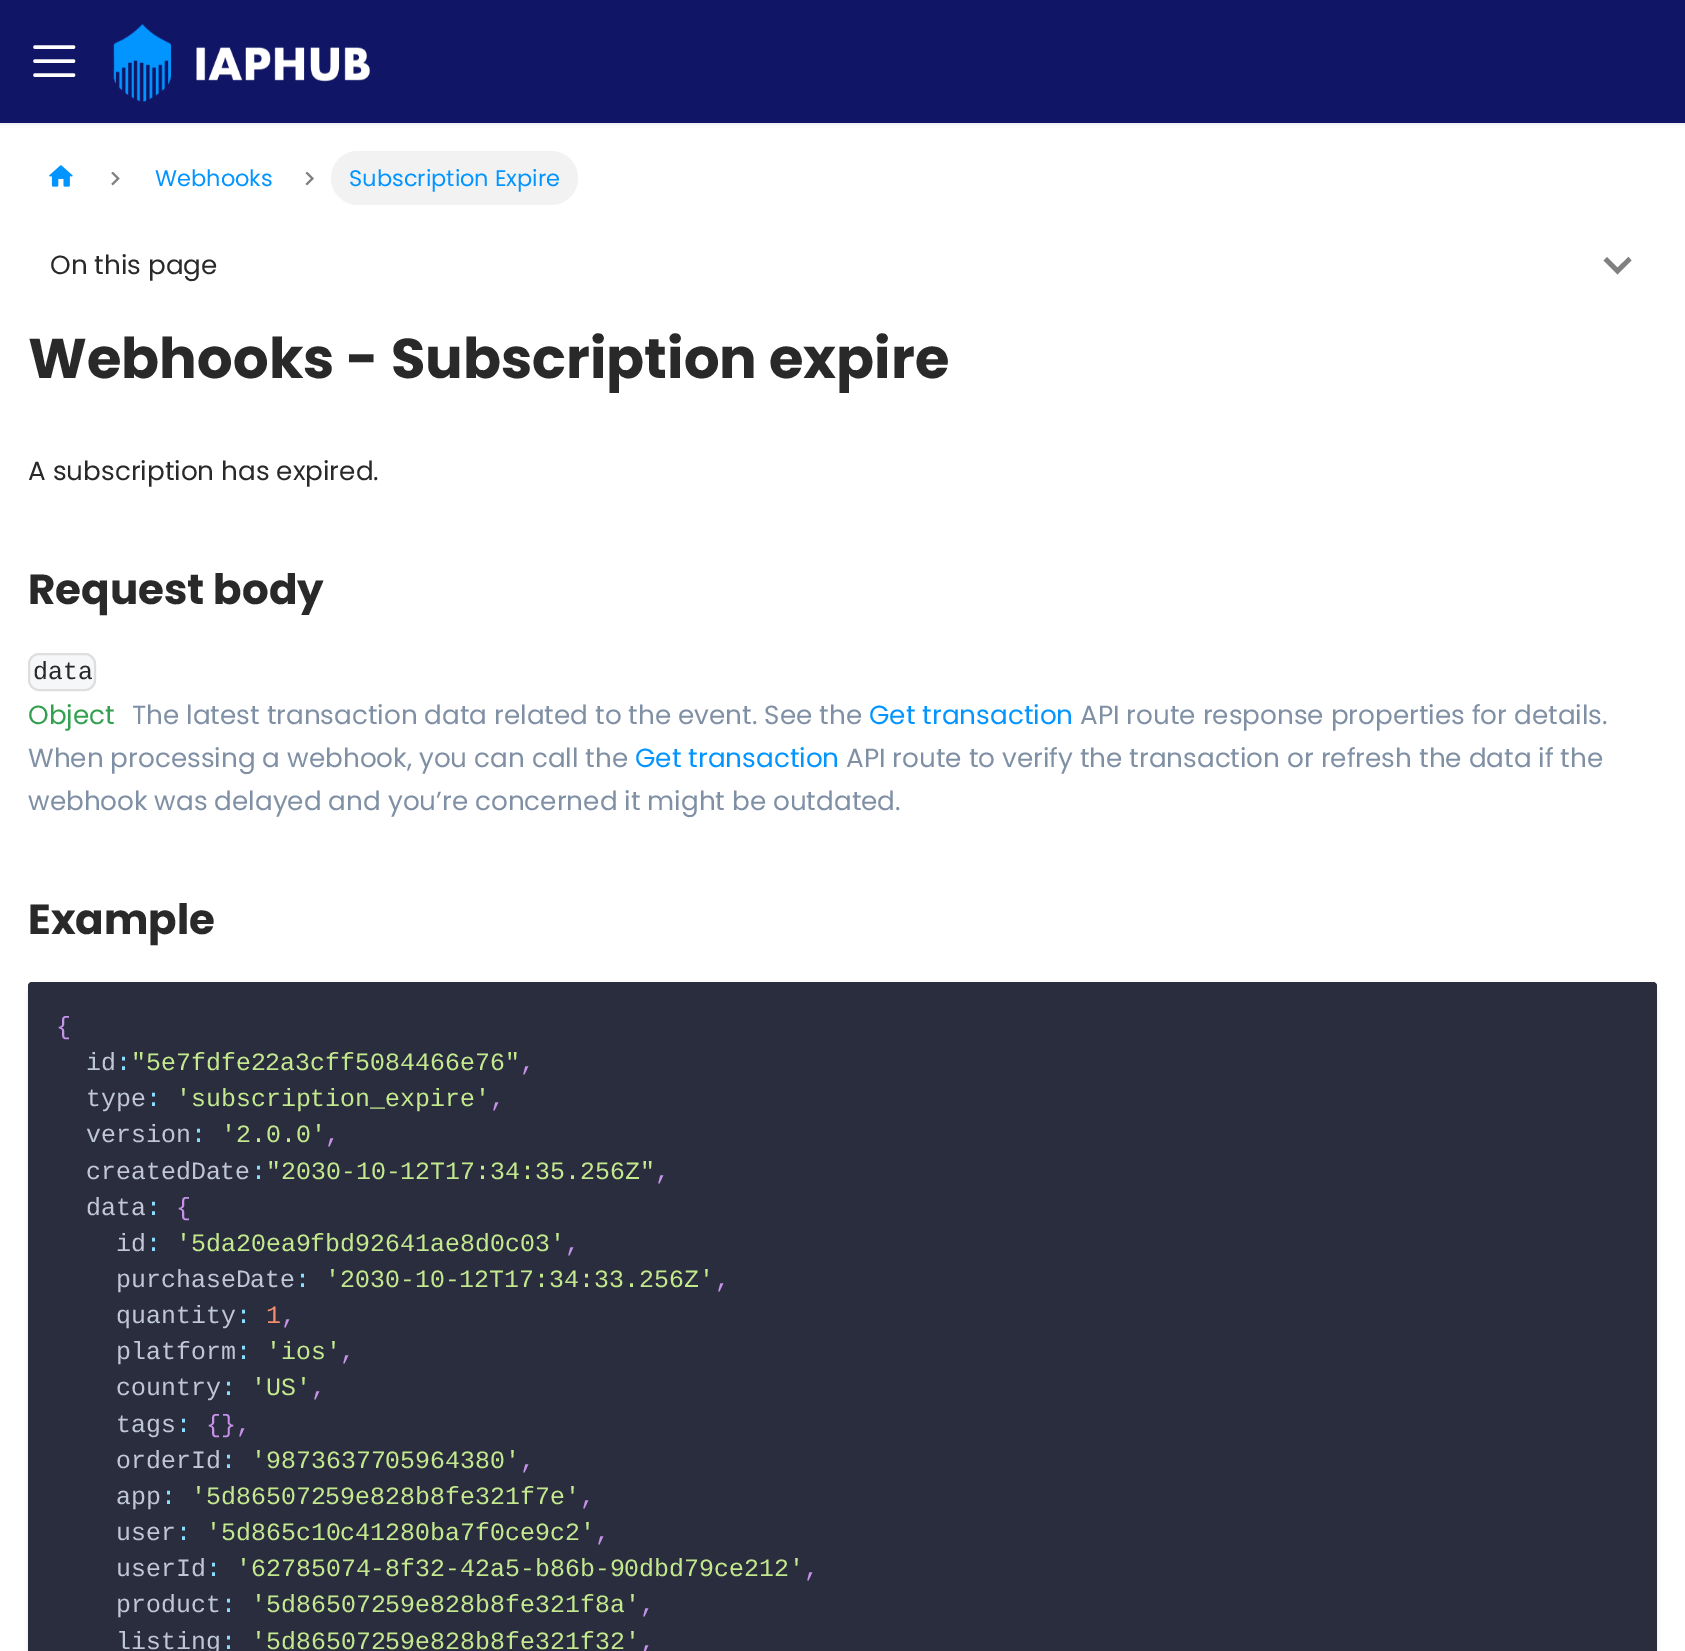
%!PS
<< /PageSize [1685 1651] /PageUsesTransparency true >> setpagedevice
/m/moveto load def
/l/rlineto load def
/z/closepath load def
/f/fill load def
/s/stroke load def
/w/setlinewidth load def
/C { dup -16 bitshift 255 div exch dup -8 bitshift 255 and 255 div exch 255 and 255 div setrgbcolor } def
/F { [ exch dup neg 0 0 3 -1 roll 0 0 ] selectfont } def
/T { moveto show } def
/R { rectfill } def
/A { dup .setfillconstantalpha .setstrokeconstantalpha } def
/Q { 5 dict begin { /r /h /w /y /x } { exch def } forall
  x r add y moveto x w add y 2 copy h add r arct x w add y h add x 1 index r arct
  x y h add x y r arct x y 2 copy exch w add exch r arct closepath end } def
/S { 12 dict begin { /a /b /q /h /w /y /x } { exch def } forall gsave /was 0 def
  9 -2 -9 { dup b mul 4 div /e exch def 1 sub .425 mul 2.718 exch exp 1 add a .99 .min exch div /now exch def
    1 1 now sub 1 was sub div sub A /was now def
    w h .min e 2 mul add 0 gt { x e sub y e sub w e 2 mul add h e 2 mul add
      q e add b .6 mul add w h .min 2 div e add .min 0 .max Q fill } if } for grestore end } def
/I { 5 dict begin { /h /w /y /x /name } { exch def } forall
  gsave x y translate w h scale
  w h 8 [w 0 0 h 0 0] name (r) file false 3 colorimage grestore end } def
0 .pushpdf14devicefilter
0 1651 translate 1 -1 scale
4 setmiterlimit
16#FFFFFF C
0 0 1685 1651 R
16#000000 C
0 2 1685 122 0 2 .1 S
16#111566 C
0 0 1685 123 R
16#FFFFFF C
3.5 w
1 setlinecap
35 47 m 38.5 0 l 35 61 m 38.5 0 l 35 75 m 38.5 0 l s
(1.rgb) 113 24 258 78 I
(2.rgb) 49 165 24 22 I
(3.rgb) 111 172 9 14 I
/Poppins-Regular 22.5 F
16#0294FF C
(Webhooks) 155 186 T
(4.rgb) 305 172 9 14 I
16#F2F2F2 C
331 151 247 54 27 Q f
16#0294FF C
(Subscription Expire) 349 186 T
/Poppins-Regular 26.25 F
16#292929 C
(On this page) 50 274 T
16#808080 C
1628.5 257 m -11 10.5 l -10.5 -10.5 l -3.5 3.5 l 14 14 l 14 -14 l z f
/Poppins-Bold 56 F
16#292929 C
(Webhooks - Subscription expire) 28 378 T
/Poppins-Regular 26.25 F
(A subscription has expired.) 28 480 T
/Poppins-Bold 42 F
(Request body) 28 604 T
16#F6F7F8 C
28 653 68 38 11 Q f
0.1 A
16#000000 C
2 w
0 setlinecap
29 654 66 36 10 Q s
/LiberationMono-Regular 24.9 F
1 A
16#292929 C
(data) 33 679 T
/Poppins-Regular 26.25 F
16#33A04F C
(Object) 28 724 T
16#7F8FA4 C
(The latest transaction data related to the event. See the) 132 724 T
16#0294FF C
(Get transaction) 869 724 T
16#7F8FA4 C
(API route response properties for details.) 1080 724 T
(When processing a webhook, you can call the) 28 767 T
16#0294FF C
(Get transaction) 635 767 T
16#7F8FA4 C
(API route to verify the transaction or refresh the data if the) 846 767 T
(webhook was delayed and you’re concerned it might be outdated.) 28 810 T
/Poppins-Bold 42 F
16#292929 C
(Example) 28 934 T
16#000000 C
28 984 1629 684 11 2 .1 S
16#292D3E C
28 982 1629 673 4 Q f
/LiberationMono-Regular 24.9 F
16#C792EA C
({) 56 1034 T
16#BFC7D5 C
(id) 86 1070 T
16#89DDFF C
(:) 116 1070 T
16#C3E88D C
("5e7fdfe22a3cff5084466e76") 131 1070 T
16#C792EA C
(,) 520 1070 T
16#BFC7D5 C
(type) 86 1106 T
16#89DDFF C
(:) 146 1106 T
16#C3E88D C
('subscription_expire') 176 1106 T
16#C792EA C
(,) 490 1106 T
16#BFC7D5 C
(version) 86 1142 T
16#89DDFF C
(:) 191 1142 T
16#C3E88D C
('2.0.0') 221 1142 T
16#C792EA C
(,) 325 1142 T
16#BFC7D5 C
(createdDate) 86 1179 T
16#89DDFF C
(:) 251 1179 T
16#C3E88D C
("2030-10-12T17:34:35.256Z") 266 1179 T
16#C792EA C
(,) 655 1179 T
16#BFC7D5 C
(data) 86 1215 T
16#89DDFF C
(:) 146 1215 T
16#C792EA C
({) 176 1215 T
16#BFC7D5 C
(id) 116 1251 T
16#89DDFF C
(:) 146 1251 T
16#C3E88D C
('5da20ea9fbd92641ae8d0c03') 176 1251 T
16#C792EA C
(,) 565 1251 T
16#BFC7D5 C
(purchaseDate) 116 1287 T
16#89DDFF C
(:) 295 1287 T
16#C3E88D C
('2030-10-12T17:34:33.256Z') 325 1287 T
16#C792EA C
(,) 715 1287 T
16#BFC7D5 C
(quantity) 116 1323 T
16#89DDFF C
(:) 236 1323 T
16#F78C6C C
(1) 266 1323 T
16#C792EA C
(,) 281 1323 T
16#BFC7D5 C
(platform) 116 1359 T
16#89DDFF C
(:) 236 1359 T
16#C3E88D C
('ios') 266 1359 T
16#C792EA C
(,) 340 1359 T
16#BFC7D5 C
(country) 116 1395 T
16#89DDFF C
(:) 221 1395 T
16#C3E88D C
('US') 251 1395 T
16#C792EA C
(,) 311 1395 T
16#BFC7D5 C
(tags) 116 1432 T
16#89DDFF C
(:) 176 1432 T
16#C792EA C
({},) 206 1432 T
16#BFC7D5 C
(orderId) 116 1468 T
16#89DDFF C
(:) 221 1468 T
16#C3E88D C
('9873637705964380') 251 1468 T
16#C792EA C
(,) 520 1468 T
16#BFC7D5 C
(app) 116 1504 T
16#89DDFF C
(:) 161 1504 T
16#C3E88D C
('5d86507259e828b8fe321f7e') 191 1504 T
16#C792EA C
(,) 580 1504 T
16#BFC7D5 C
(user) 116 1540 T
16#89DDFF C
(:) 176 1540 T
16#C3E88D C
('5d865c10c41280ba7f0ce9c2') 206 1540 T
16#C792EA C
(,) 595 1540 T
16#BFC7D5 C
(userId) 116 1576 T
16#89DDFF C
(:) 206 1576 T
16#C3E88D C
('62785074-8f32-42a5-b86b-90dbd79ce212') 236 1576 T
16#C792EA C
(,) 804 1576 T
16#BFC7D5 C
(product) 116 1612 T
16#89DDFF C
(:) 221 1612 T
16#C3E88D C
('5d86507259e828b8fe321f8a') 251 1612 T
16#C792EA C
(,) 640 1612 T
16#BFC7D5 C
(listing) 116 1649 T
16#89DDFF C
(:) 221 1649 T
16#C3E88D C
('5d86507259e828b8fe321f32') 251 1649 T
16#C792EA C
(,) 640 1649 T
.poppdf14devicefilter showpage
